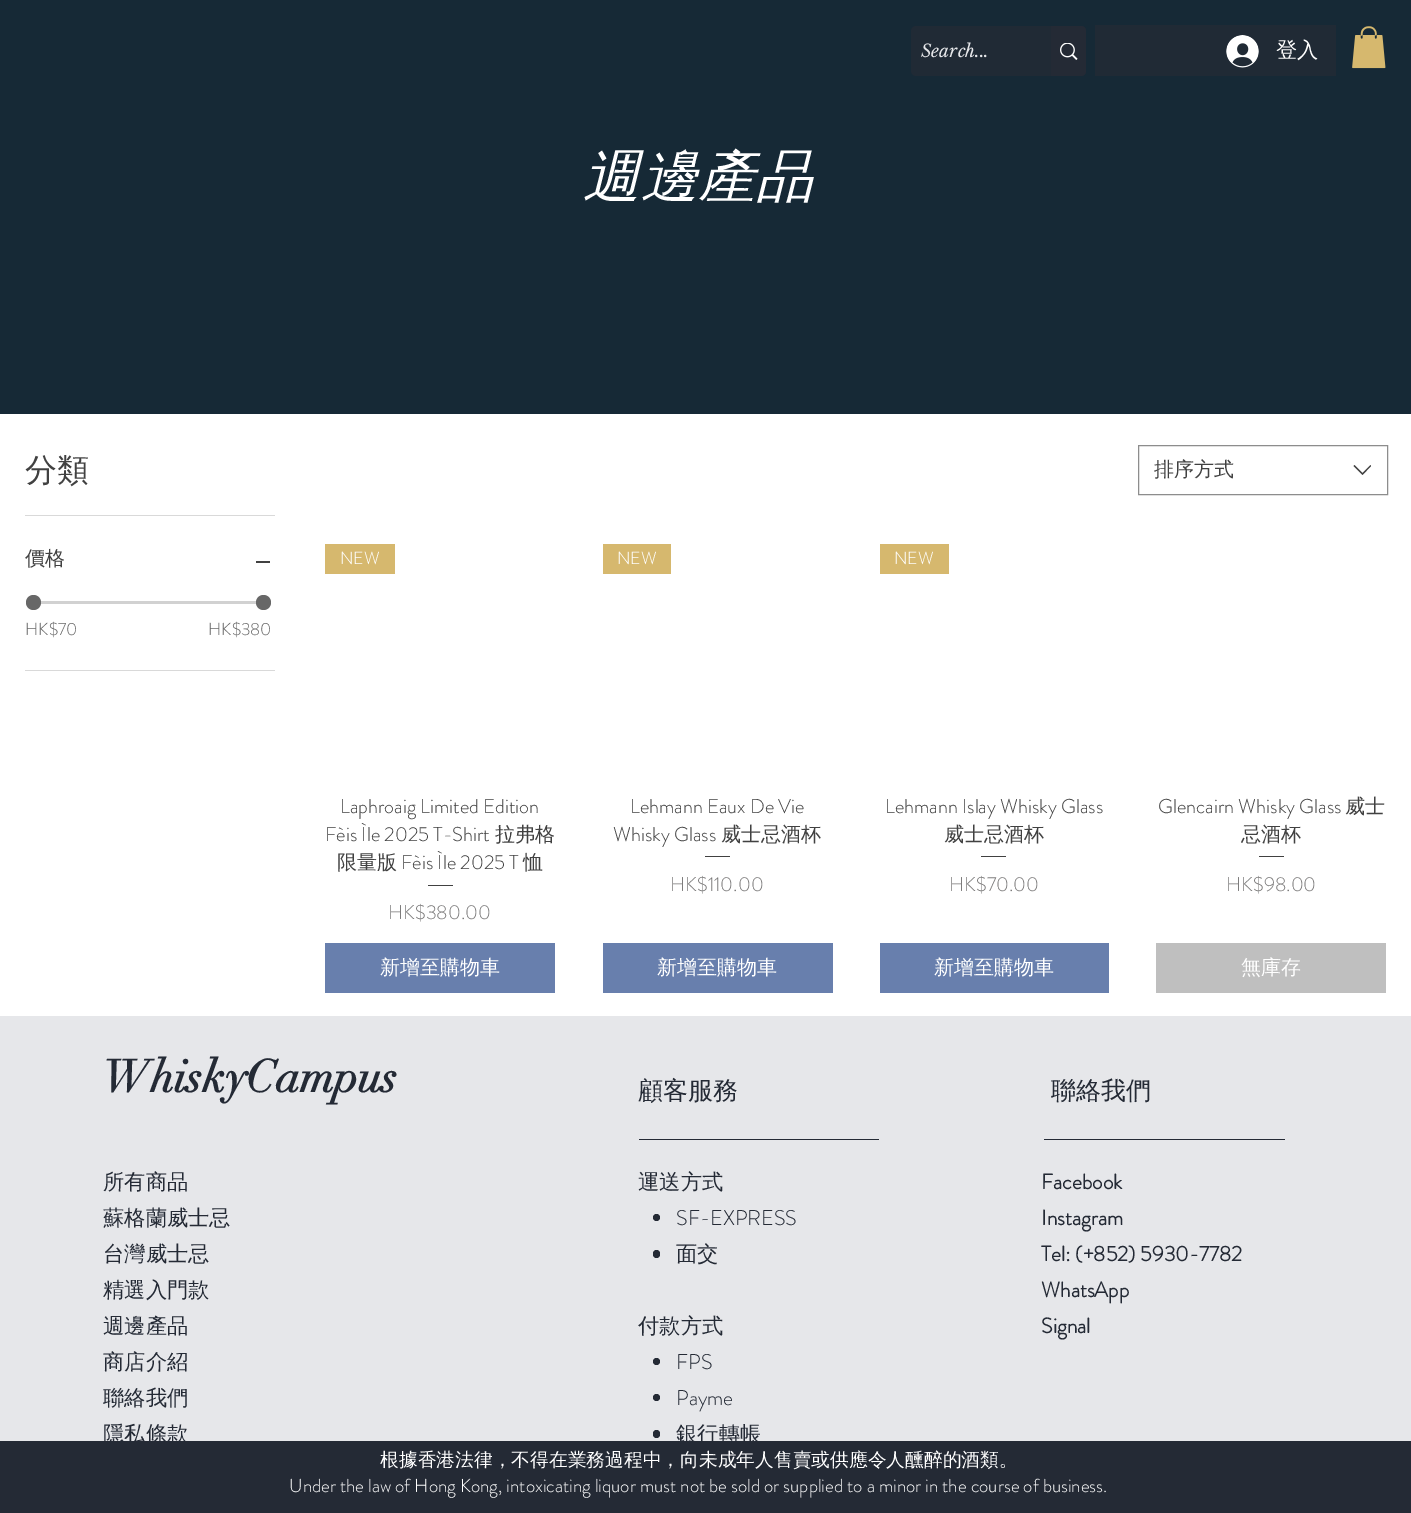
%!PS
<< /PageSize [1411 1513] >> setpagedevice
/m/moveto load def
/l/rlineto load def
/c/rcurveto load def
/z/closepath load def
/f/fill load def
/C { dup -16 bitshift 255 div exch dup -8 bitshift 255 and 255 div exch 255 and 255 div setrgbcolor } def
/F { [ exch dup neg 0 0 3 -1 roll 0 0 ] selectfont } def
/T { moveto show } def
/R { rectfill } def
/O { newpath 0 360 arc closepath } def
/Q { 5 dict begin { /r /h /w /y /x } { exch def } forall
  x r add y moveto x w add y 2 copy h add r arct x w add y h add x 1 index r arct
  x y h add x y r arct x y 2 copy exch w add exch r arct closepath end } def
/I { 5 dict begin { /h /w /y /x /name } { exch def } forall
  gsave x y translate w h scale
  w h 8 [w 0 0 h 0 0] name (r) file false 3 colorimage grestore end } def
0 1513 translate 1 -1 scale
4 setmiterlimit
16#162936 C
0 0 1411 1513 R
16#202A35 C
911 26 175 50 5 Q f
/LibreBaskerville-Italic 17.5 F
16#E6E7EA C
(Search...) 921 57 T
16#242A35 C
1051 26 m 30 0 l 3 0 5 2 5 5 c 0 40 l 0 3 -2 5 -5 5 c -30 0 l z f
(1.rgb) 1060 43 18 17 I
16#202A35 C
1095 25 241 51 R
(2.rgb) 1226 35 33 33 I
/WenQuanYiZenHei-Medium 21.25 F
16#FFFFFF C
(登入) 1276 57 T
(3.rgb) 1352 26 34 43 I
/WenQuanYiZenHei-MediumItalic 57.5 F
(週邊產品) 583 196 T
0 414 1411 602 R
16#D9D9D9 C
25 515 250 1 R
/WenQuanYiZenHei-Medium 32 F
16#414141 C
(分類) 25 481 T
16#D9D9D9 C
25 670 250 1 R
/WenQuanYiZenHei-Medium 20 F
16#414141 C
(價格) 25 565 T
256 561 14 2 R
16#D1D1D1 C
33 601 230 3 R
16#676767 C
33.5 602.5 7.5 O f
263.5 602.5 7.5 O f
/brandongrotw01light-Light 17.5 F
(HK$70) 25 635 T
(HK$380) 208 635 T
16#8D8D8D C
1138.5 445.5 249 49 rectstroke
/WenQuanYiZenHei-Medium 20 F
16#414141 C
(排序方式) 1154 476 T
1370.5 465 m .5 1 l -8.5 9 l -9 -9 l 1 -1 l 8 8 l z eofill
16#D6B86E C
325 544 70 30 R
/brandongrotw01light-Light 17.5 F
16#FFFFFF C
(NEW) 340 564 T
/brandongrotw01light-Light 20 F
16#414141 C
(Laphroaig Limited Edition) 340 813 T
(Fèis Ìle 2025 T-Shirt) 325 841 T
/WenQuanYiZenHei-Medium 20 F
(拉弗格) 495 841 T
(限量版) 337 869 T
/brandongrotw01light-Light 20 F
(Fèis Ìle 2025 T) 401 869 T
/WenQuanYiZenHei-Medium 20 F
(恤) 523 869 T
428 885 25 1 R
/brandongrotw01light-Light 20 F
16#7D7C7C C
(HK$380.00) 388 919 T
16#687FAD C
325 943 230 50 R
/WenQuanYiZenHei-Medium 20 F
16#FFFFFF C
(新增至購物車) 380 974 T
16#D6B86E C
603 544 68 30 R
/brandongrotw01light-Light 17.5 F
16#FFFFFF C
(NEW) 617 564 T
/brandongrotw01light-Light 20 F
16#414141 C
(Lehmann Eaux De Vie) 630 813 T
(Whisky Glass) 613 841 T
/WenQuanYiZenHei-Medium 20 F
(威士忌酒杯) 721 841 T
705 856 25 1 R
/brandongrotw01light-Light 20 F
16#7D7C7C C
(HK$110.00) 670 891 T
16#687FAD C
603 943 230 50 R
/WenQuanYiZenHei-Medium 20 F
16#FFFFFF C
(新增至購物車) 657 974 T
16#D6B86E C
880 544 69 30 R
/brandongrotw01light-Light 17.5 F
16#FFFFFF C
(NEW) 894 564 T
/brandongrotw01light-Light 20 F
16#414141 C
(Lehmann Islay Whisky Glass) 885 813 T
/WenQuanYiZenHei-Medium 20 F
(威士忌酒杯) 944 841 T
981 856 25 1 R
/brandongrotw01light-Light 20 F
16#7D7C7C C
(HK$70.00) 949 891 T
16#687FAD C
880 943 229 50 R
/WenQuanYiZenHei-Medium 20 F
16#FFFFFF C
(新增至購物車) 934 974 T
/brandongrotw01light-Light 20 F
16#414141 C
(Glencairn Whisky Glass) 1158 813 T
/WenQuanYiZenHei-Medium 20 F
(威士) 1345 813 T
(忌酒杯) 1241 841 T
1259 856 25 1 R
/brandongrotw01light-Light 20 F
16#7D7C7C C
(HK$98.00) 1226 891 T
16#BFBFBF C
1156 943 230 50 R
/WenQuanYiZenHei-Medium 20 F
16#FFFFFF C
(無庫存) 1241 974 T
16#E6E7EA C
0 1016 1411 425 R
/didot-Bold 45 F
16#242A35 C
(WhiskyCampus) 103 1092 T
/WenQuanYiZenHei-Medium 25 F
(顧客服務) 638 1099 T
(聯絡我們) 1051 1099 T
639 1139 240 1 R
1044 1139 241 1 R
/WenQuanYiZenHei-Medium 21.25 F
(所有商品) 103 1189 T
(蘇格蘭威士忌) 103 1225 T
(台灣威士忌) 103 1261 T
(精選入門款) 103 1297 T
(週邊產品) 103 1333 T
(商店介紹) 103 1369 T
(聯絡我們) 103 1405 T
(隱私條款) 103 1441 T
(運送方式) 638 1189 T
656.5 1217.5 3.5 O f
/brandongrotw01light-Light 21.25 F
(SF-EXPRESS) 676 1225 T
653 1250 7 8 3.5 Q f
/WenQuanYiZenHei-Medium 21.25 F
(面交) 676 1261 T
(付款方式) 638 1333 T
656.5 1361.5 3.5 O f
/brandongrotw01light-Light 21.25 F
(FPS) 676 1369 T
656.5 1397.5 3.5 O f
(Payme) 676 1405 T
653 1430 7 8 3.5 Q f
/WenQuanYiZenHei-Medium 21.25 F
(銀行轉帳) 676 1441 T
/brandongrotw01light-Bold 21.25 F
(Facebook) 1041 1189 T
(Instagram) 1041 1225 T
(Tel: \(+852\) 5930-7782) 1041 1261 T
(WhatsApp) 1041 1297 T
(Signal) 1041 1333 T
0 1441 1411 72 R
/WenQuanYiZenHei-Medium 18.75 F
16#FFFFFF C
(根據香港法律，不得在業務過程中，向未成年人售賣或供應令人醺醉的酒類。) 380 1466 T
/brandongrotw01light-Light 18.75 F
(Under the law of Hong Kong, intoxicating liquor must not be sold or supplied to a minor in the course of business.) 289 1492 T
showpage
